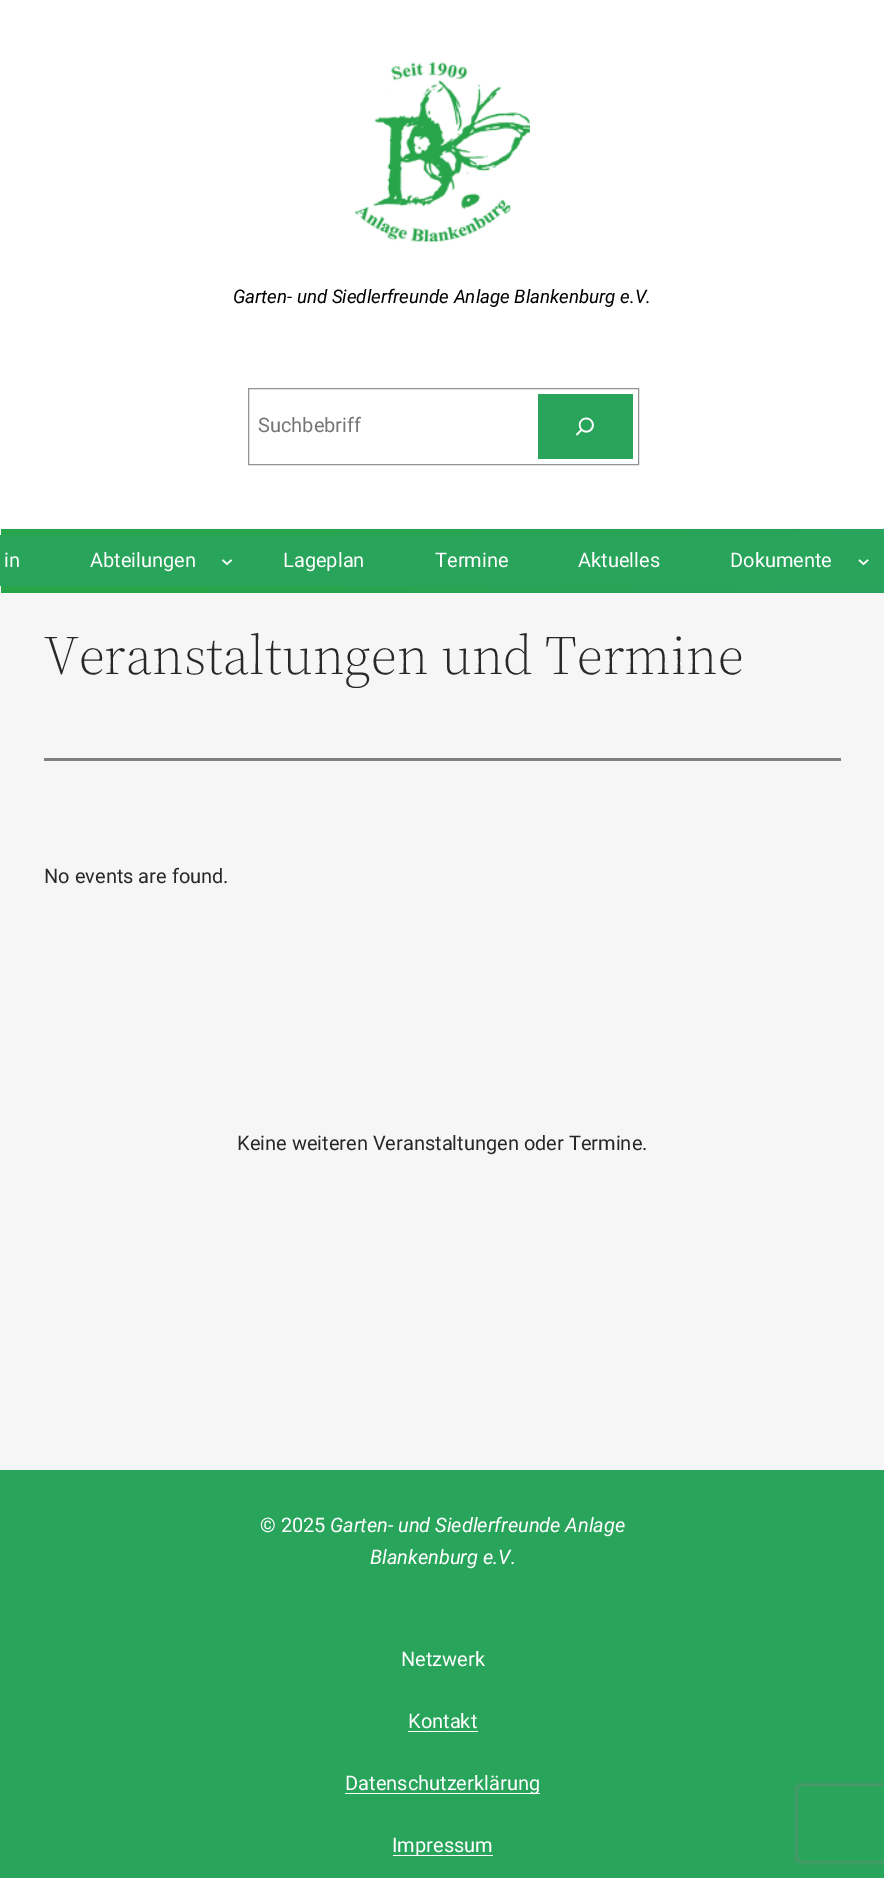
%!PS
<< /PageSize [884 1878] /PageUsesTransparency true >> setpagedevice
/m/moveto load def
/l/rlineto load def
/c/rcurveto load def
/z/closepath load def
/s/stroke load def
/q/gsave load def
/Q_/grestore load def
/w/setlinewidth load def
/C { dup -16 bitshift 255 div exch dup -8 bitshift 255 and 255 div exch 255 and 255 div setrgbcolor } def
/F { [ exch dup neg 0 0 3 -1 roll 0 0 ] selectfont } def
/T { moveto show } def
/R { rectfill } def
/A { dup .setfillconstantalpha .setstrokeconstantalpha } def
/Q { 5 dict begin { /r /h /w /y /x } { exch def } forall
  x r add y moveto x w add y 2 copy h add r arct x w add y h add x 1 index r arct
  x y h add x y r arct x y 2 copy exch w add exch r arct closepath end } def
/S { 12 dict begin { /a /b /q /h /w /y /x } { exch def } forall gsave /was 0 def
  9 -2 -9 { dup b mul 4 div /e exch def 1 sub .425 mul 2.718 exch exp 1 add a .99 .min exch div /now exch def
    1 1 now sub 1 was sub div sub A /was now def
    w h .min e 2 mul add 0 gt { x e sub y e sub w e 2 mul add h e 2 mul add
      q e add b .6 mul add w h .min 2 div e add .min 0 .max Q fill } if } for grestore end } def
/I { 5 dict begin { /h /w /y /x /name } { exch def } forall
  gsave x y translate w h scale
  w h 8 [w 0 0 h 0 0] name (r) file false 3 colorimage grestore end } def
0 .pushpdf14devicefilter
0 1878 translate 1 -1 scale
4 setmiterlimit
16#F6F6F6 C
0 0 884 1878 R
16#FFFFFF C
0 0 884 528 R
(1.rgb) 355 62 175 181 I
/Roboto-Italic 18.75 F
16#000000 C
(Garten- und Siedlerfreunde Anlage Blankenburg e.V.) 233 303 T
16#949494 C
248.5 388.5 390 76 rectstroke
/Roboto-Regular 20 F
16#757575 C
(Suchbebriff) 258 432 T
16#28A45B C
538 394 95 65 R
(2.rgb) 575 417 19 19 I
q 1 529 m 883 0 l 0 64 l -883 0 l z clip newpath
<< /ShadingType 2 /ColorSpace /DeviceRGB /Coords [206 324 679 797] /Extend [true true] /Function << /FunctionType 3 /Domain [0 1] /Functions [<< /FunctionType 2 /Domain [0 1] /C0 [.157 .643 .294] /C1 [.157 .643 .29] /N 1 >> << /FunctionType 2 /Domain [0 1] /C0 [.157 .643 .29] /C1 [.157 .643 .373] /N 1 >>] /Bounds [.21] /Encode [0 1 0 1] >> >> shfill Q_
0 535 884 51 R
16#FFFFFF C
(in) 4 567 T
(Abteilungen) 90 567 T
1.5 w
222.5 560 m 4.5 4 l 4.5 -4 l s
(Lageplan) 283 567 T
(Termine) 435 567 T
(Aktuelles) 578 567 T
(Dokumente) 730 567 T
859 560 m 4.5 4 l 4.5 -4 l s
/SourceSerif4-Light 55 F
16#282828 C
(Veranstaltungen und Termine) 44 674 T
16#808080 C
44 758 797 3 R
/Roboto-Regular 20 F
16#282828 C
(No events are found.) 44 883 T
(Keine weiteren Veranstaltungen oder Termine.) 237 1150 T
16#28A45B C
0 1470 884 408 R
16#FFFFFF C
(© 2025) 260 1532 T
/Roboto-Italic 20 F
(Garten- und Siedlerfreunde Anlage) 330 1532 T
(Blankenburg e.V.) 370 1564 T
/Roboto-Regular 20 F
(Netzwerk) 401 1666 T
(Kontakt) 408 1728 T
408 1731 70 1 R
345 1793 195 1 R
(Datenschutzerklärung) 345 1790 T
393 1855 100 1 R
(Impressum) 392 1852 T
q
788 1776 m 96 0 l 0 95 l -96 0 l z 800.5 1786 m 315 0 l 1.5 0 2.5 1 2.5 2.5 c 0 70 l 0 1.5 -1 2.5 -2.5 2.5 c -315 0 l -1.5 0 -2.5 -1 -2.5 -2.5 c 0 -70 l 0 -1.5 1 -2.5 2.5 -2.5 c z eoclip newpath
16#808080 C
798 1786 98 75 2.5 3 1 S
Q_
.poppdf14devicefilter showpage
